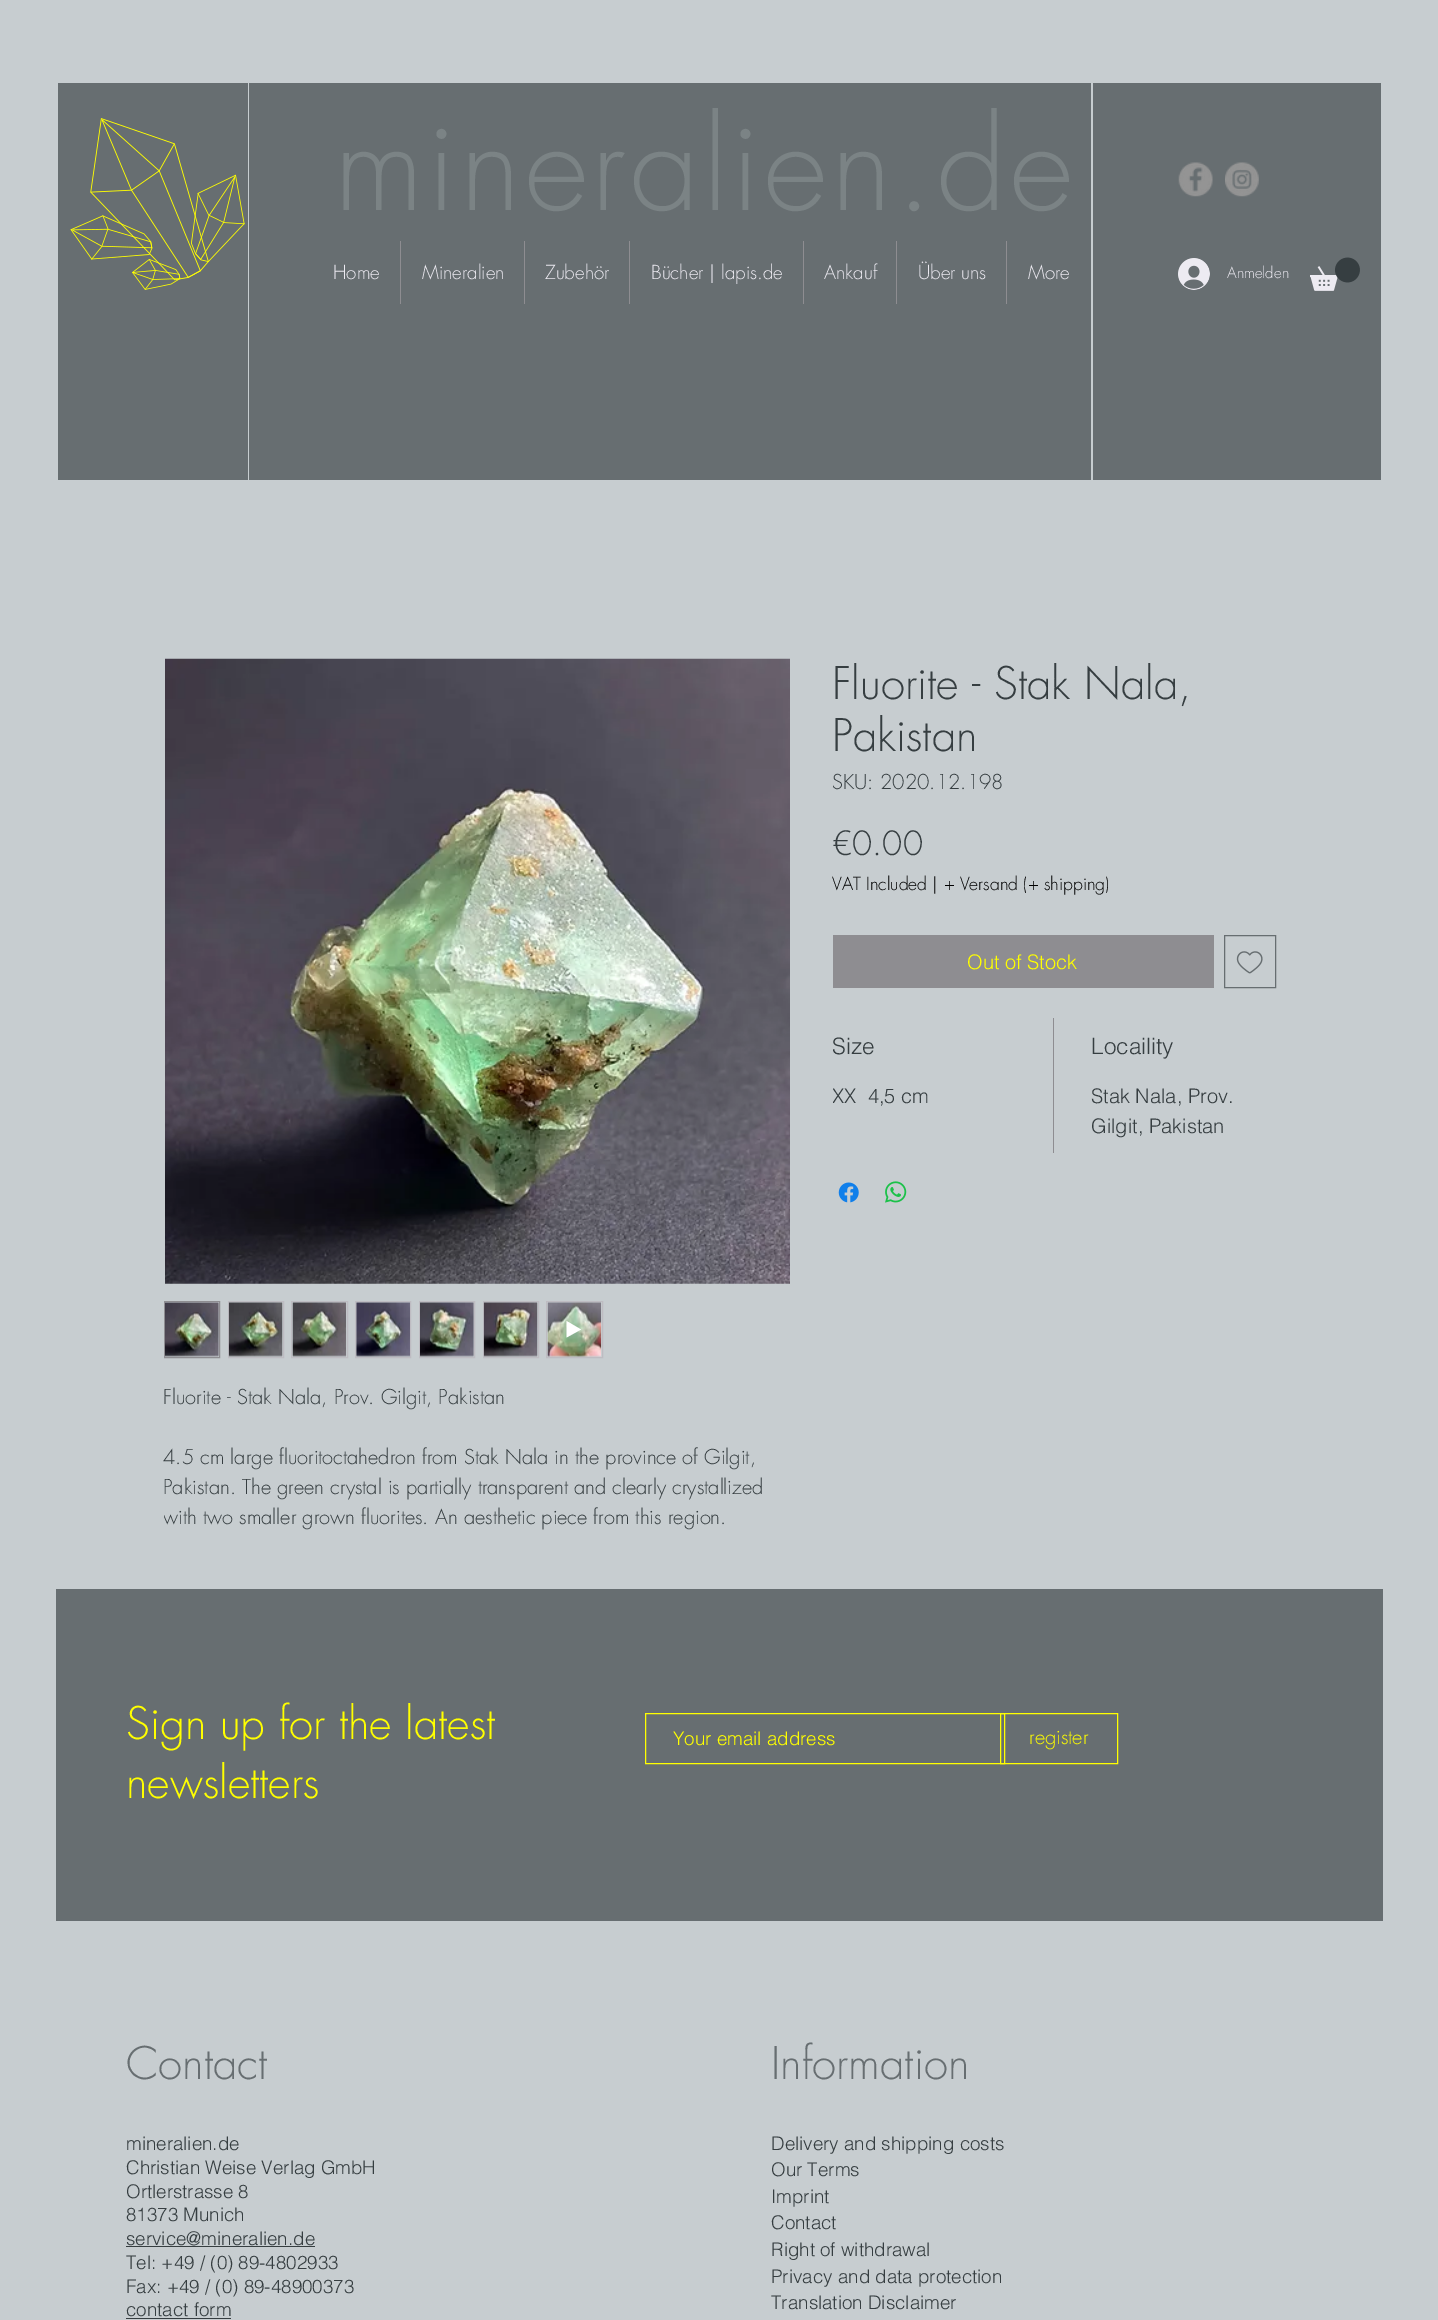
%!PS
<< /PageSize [1438 2320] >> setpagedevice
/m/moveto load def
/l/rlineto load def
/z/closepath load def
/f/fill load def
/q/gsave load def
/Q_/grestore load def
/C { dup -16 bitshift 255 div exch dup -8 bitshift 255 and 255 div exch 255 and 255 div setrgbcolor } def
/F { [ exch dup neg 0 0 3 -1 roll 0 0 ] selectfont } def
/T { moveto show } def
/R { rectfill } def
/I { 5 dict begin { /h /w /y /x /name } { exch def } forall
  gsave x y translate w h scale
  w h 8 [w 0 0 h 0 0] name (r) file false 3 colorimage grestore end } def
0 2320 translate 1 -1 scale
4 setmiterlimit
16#C7CDD0 C
0 0 1438 2320 R
16#676E71 C
58 83 190 397 R
(1.rgb) 70 118 175 172 I
249 83 842 397 R
/futura-Light 123.75 F
16#7B8385 C
334 210 m 3.75 0 (mineralien.de) ashow
/futura-Light 18.75 F
16#EDEBF2 C
(Home) 333 279 T
16#8E8D91 C
400 241 1 63 R
16#EDEBF2 C
(Mineralien) 422 279 T
16#8E8D91 C
524 241 1 63 R
16#EDEBF2 C
(Zubehör) 545 279 T
16#8E8D91 C
629 241 1 63 R
16#EDEBF2 C
(Bücher | lapis.de) 651 279 T
16#8E8D91 C
803 241 1 63 R
16#EDEBF2 C
(Ankauf) 824 279 T
16#8E8D91 C
896 241 1 63 R
16#EDEBF2 C
(Über uns) 918 279 T
16#8E8D91 C
1006 241 1 63 R
16#EDEBF2 C
(More) 1028 279 T
16#676E71 C
1093 83 288 397 R
(2.rgb) 1178 162 35 35 I
(3.rgb) 1225 162 34 35 I
(4.rgb) 1178 258 32 32 I
/futura-Light 15 F
16#EDEBF2 C
(Anmelden) 1227 278 T
(5.rgb) 1310 257 50 34 I
/futura-Light 43.75 F
16#363E41 C
(Fluorite - Stak Nala,) 832 699 T
(Pakistan) 832 751 T
/futura-Light 20 F
(SKU: 2020.12.198) 832 789 T
/futura-Light 32.5 F
(€0.00) 832 855 T
/futura-Light 17.5 F
16#000000 C
(VAT Included | + Versand \(+ shipping\)) 832 890 T
16#8E8D91 C
833 935 381 53 R
/helvetica-Light 20 F
16#FFFF00 C
(Out of Stock) 967 969 T
16#676E71 C
1224.5 935.5 51 52 rectstroke
(6.rgb) 1236 951 27 23 I
16#8E8D91 C
1053 1018 1 135 R
/helvetica-Light 22.5 F
16#363E41 C
(Size) 832 1054 T
q
833 1018 220 135 rectclip
/helvetica-Light 20 F
(XX  4,5 cm) 832 1103 T
Q_
(Locaility) 1091 1054 T
/helvetica-Light 20 F
(Stak Nala, Prov.) 1091 1103 T
(Gilgit, Pakistan) 1091 1133 T
(7.rgb) 838 1182 21 21 I
(8.rgb) 885 1181 22 22 I
(9.rgb) 165 658 625 626 I
16#8E8D91 C
164.5 1301.5 55 56 rectstroke
(10.rgb) 165 1302 54 55 I
16#BEBCC2 C
228.5 1301.5 55 56 rectstroke
(11.rgb) 228 1302 55 55 I
291.5 1301.5 56 56 rectstroke
(12.rgb) 292 1302 55 55 I
355.5 1301.5 55 56 rectstroke
(13.rgb) 356 1302 54 55 I
419.5 1301.5 55 56 rectstroke
(14.rgb) 420 1302 54 55 I
483.5 1301.5 55 56 rectstroke
(15.rgb) 483 1302 55 55 I
546.5 1301.5 56 56 rectstroke
(16.rgb) 547 1302 55 55 I
16#FFFFFF C
566.5 1321 m 0 16.5 l 14.5 -8 l z f
/futura-Light 20 F
16#363E41 C
(Fluorite - Stak Nala, Prov. Gilgit, Pakistan) 163 1404 T
(4.5 cm large fluoritoctahedron from Stak Nala in the province of Gilgit,) 163 1464 T
(Pakistan. The green crystal is partially transparent and clearly crystallized) 163 1494 T
q
164 1383 625 150 rectclip
(with two smaller grown fluorites. An aesthetic piece from this region.) 163 1524 T
Q_
16#676E71 C
56 1589 1327 332 R
/futura-Light 43.75 F
16#FFFF00 C
(Sign up for the latest) 126 1739 T
(newsletters) 126 1798 T
645.5 1713.5 359 50 rectstroke
/helvetica-Light 18.75 F
(Your email address) 673 1745 T
1000.5 1713.5 117 50 rectstroke
/futura-Light 20 F
(register) 1029 1744 T
/futura-Light 43.75 F
16#676E71 C
(Contact) 126 2079 T
/helvetica-Light 18.75 F
16#363E41 C
(mineralien.de) 126 2150 T
(Christian Weise Verlag GmbH) 126 2174 T
(Ortlerstrasse 8) 126 2198 T
(81373 Munich) 126 2221 T
(service@mineralien.de) 126 2245 T
126 2246 189 1 R
(Tel: +49 / \(0\) 89-4802933) 126 2269 T
(Fax: +49 / \(0\) 89-48900373) 126 2293 T
(contact form) 126 2316 T
126 2318 105 1 R
/futura-Light 43.75 F
16#676E71 C
(Information) 771 2079 T
/helvetica-Light 18.75 F
16#363E41 C
(Delivery and shipping costs) 771 2150 T
(Our Terms) 771 2176 T
(Imprint) 771 2203 T
(Contact) 771 2229 T
(Right of withdrawal) 771 2256 T
(Privacy and data protection) 771 2283 T
(Translation Disclaimer) 771 2309 T
showpage
